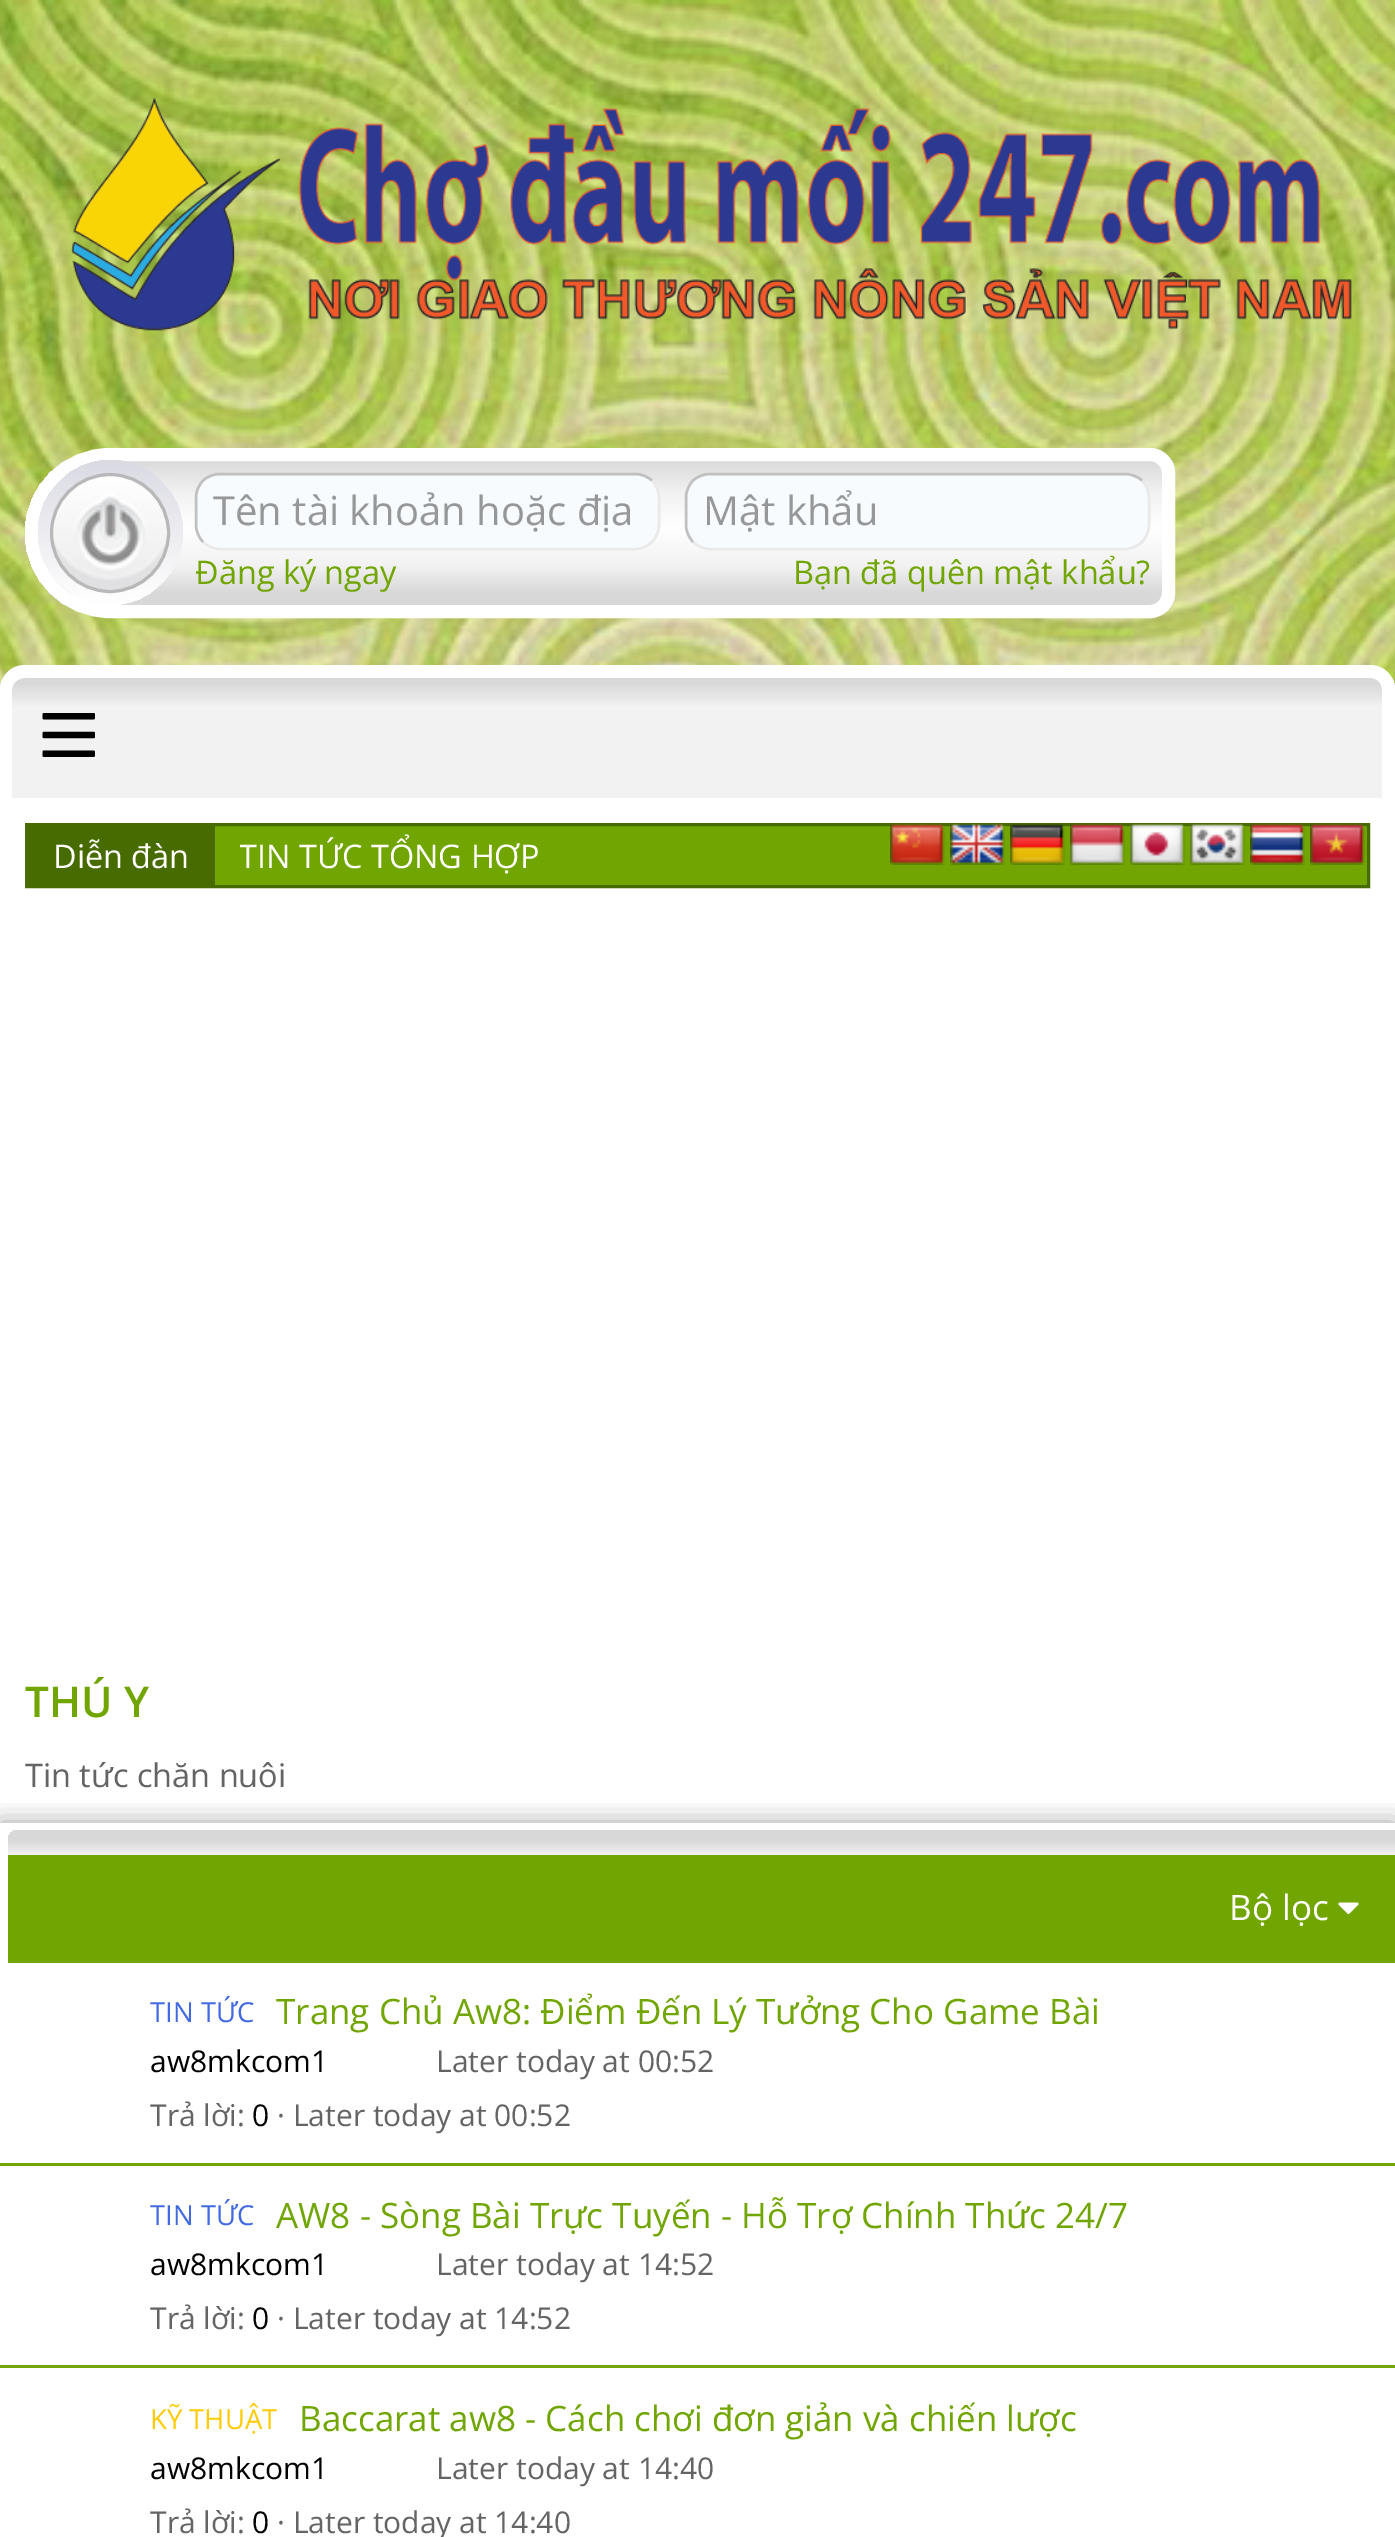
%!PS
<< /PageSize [1395 2537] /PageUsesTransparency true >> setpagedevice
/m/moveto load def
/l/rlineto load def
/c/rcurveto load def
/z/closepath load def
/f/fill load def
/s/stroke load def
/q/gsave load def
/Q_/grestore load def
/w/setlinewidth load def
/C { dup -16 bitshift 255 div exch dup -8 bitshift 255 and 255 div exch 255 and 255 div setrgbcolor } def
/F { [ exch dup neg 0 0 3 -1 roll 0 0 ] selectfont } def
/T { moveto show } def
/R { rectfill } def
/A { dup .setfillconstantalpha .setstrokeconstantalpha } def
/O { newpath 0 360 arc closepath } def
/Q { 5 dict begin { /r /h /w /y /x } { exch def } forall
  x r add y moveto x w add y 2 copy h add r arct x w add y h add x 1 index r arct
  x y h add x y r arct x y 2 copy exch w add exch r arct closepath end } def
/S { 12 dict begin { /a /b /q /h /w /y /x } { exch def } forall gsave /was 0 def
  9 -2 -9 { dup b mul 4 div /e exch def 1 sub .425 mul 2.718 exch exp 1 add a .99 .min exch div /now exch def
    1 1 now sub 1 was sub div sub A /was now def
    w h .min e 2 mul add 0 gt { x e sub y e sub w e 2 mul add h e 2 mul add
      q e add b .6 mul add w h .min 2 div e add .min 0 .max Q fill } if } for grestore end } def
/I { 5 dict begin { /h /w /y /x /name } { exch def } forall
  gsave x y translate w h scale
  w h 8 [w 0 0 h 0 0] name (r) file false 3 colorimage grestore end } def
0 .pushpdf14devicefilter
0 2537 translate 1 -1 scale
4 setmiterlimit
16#FFFFFF C
0 0 1395 2537 R
(1.rgb) 0 0 1395 690 I
(2.rgb) 71 97 1281 234 I
q
110 448 m 1040 0 l 14 0 25 11 25 25 c 0 120 l 0 14 -11 25 -25 25 c -1040 0 l -47 0 -85 -38 -85 -85 c 0 -47 38 -85 85 -85 c z clip newpath
q 25 460 m 1150 0 l 0 145 l -1150 0 l z clip newpath
<< /ShadingType 2 /ColorSpace /DeviceRGB /Coords [600 457 600 605] /Extend [true true] /Function << /FunctionType 3 /Domain [0 1] /Functions [<< /FunctionType 2 /Domain [0 1] /C0 [.847 .847 .847] /C1 [.949 .949 .949] /N 1 >> << /FunctionType 2 /Domain [0 1] /C0 [.949 .949 .949] /C1 [1 1 1] /N 1 >> << /FunctionType 2 /Domain [0 1] /C0 [1 1 1] /C1 [.949 .949 .949] /N 1 >> << /FunctionType 2 /Domain [0 1] /C0 [.949 .949 .949] /C1 [.847 .847 .847] /N 1 >> << /FunctionType 2 /Domain [0 1] /C0 [.847 .847 .847] /C1 [.847 .847 .847] /N 1 >>] /Bounds [.24 .48 .73 .92] /Encode [0 1 0 1 0 1 0 1 0 1] >> >> shfill Q_
Q_
13 w
110 454.5 m 1040 0 l 10 0 18.5 8.5 18.5 18.5 c 0 120 l 0 10 -8.5 18.5 -18.5 18.5 c -1040 0 l -43.5 0 -78.5 -35 -78.5 -78.5 c 0 -43.5 35 -78.5 78.5 -78.5 c z s
q 110.5 532.5 72.5 O clip newpath
<< /ShadingType 2 /ColorSpace /DeviceRGB /Coords [110 460 110 605] /Extend [true true] /Function << /FunctionType 2 /Domain [0 1] /C0 [.855 .855 .89] /C1 [1 1 1] /N 1 >> >> shfill Q_
(3.rgb) 50 475 120 118 I
16#B8B8B8 C
3 w
110 533 58.5 O s
16#F8FBFE C
195 473 465 77 25 Q f
16#E9E9E9 C
2.5 w
652 480.5 m 4 4.5 7 10.5 7 17 c 0 27.5 l 0 6.5 -3 12.5 -7 17 c -4.5 4 -10.5 7 -17 7 c -415 0 l -6.5 0 -12.5 -3 -17 -7 c s
16#C0C0C0 C
203 542 m -4 -4.5 -7 -10.5 -7 -17 c 0 -27.5 l 0 -6.5 3 -12.5 7 -17 c 4.5 -4 10.5 -6.5 17 -6.5 c 415 0 l 6.5 0 12.5 2.5 17 6.5 c s
q
213 483 430 55 rectclip
/OpenSans-Regular 40 F
16#959798 C
(Tên tài khoản hoặc địa) 213 525 T
Q_
16#F8FBFE C
685 473 465 77 25 Q f
16#E9E9E9 C
1142 480.5 m 4 4.5 7 10.5 7 17 c 0 27.5 l 0 6.5 -3 12.5 -7 17 c -4.5 4 -10.5 7 -17 7 c -415 0 l -6.5 0 -12.5 -3 -17 -7 c s
16#C0C0C0 C
693 542 m -4 -4.5 -7 -10.5 -7 -17 c 0 -27.5 l 0 -6.5 3 -12.5 7 -17 c 4.5 -4 10.5 -6.5 17 -6.5 c 415 0 l 6.5 0 12.5 2.5 17 6.5 c s
/OpenSans-Regular 40 F
16#959798 C
(Mật khẩu) 703 525 T
/OpenSans-Regular 32.5 F
16#71A502 C
(Đăng ký ngay) 195 584 T
(Bạn đã quên mật khẩu?) 793 584 T
q
25 665 m 1345 0 l 14 0 25 11 25 25 c 0 108 l -1395 0 l 0 -108 l 0 -14 11 -25 25 -25 c z clip newpath
q 0 678 m 1395 0 l 0 120 l -1395 0 l z clip newpath
<< /ShadingType 2 /ColorSpace /DeviceRGB /Coords [698 677 698 798] /Extend [true true] /Function << /FunctionType 3 /Domain [0 1] /Functions [<< /FunctionType 2 /Domain [0 1] /C0 [.847 .847 .847] /C1 [.847 .847 .847] /N 1 >> << /FunctionType 2 /Domain [0 1] /C0 [.847 .847 .847] /C1 [.949 .949 .949] /N 1 >> << /FunctionType 2 /Domain [0 1] /C0 [.949 .949 .949] /C1 [.949 .949 .949] /N 1 >>] /Bounds [.05 .25] /Encode [0 1 0 1 0 1] >> >> shfill Q_
Q_
16#FFFFFF C
25 665 m 1345 0 l 14 0 25 11 25 25 c 0 108 l -1395 0 l 0 -108 l 0 -14 11 -25 25 -25 c z 25 678 m 1345 0 l 7 0 12 5 12 12 c 0 108 l -1370 0 l 0 -108 l 0 -7 6 -12 13 -12 c z eofill
(4.rgb) 42 713 53 44 I
16#71A502 C
215 826 1152 59 R
16#486B00 C
3 w
26.5 824.5 1342 62 rectstroke
28 826 187 59 R
16#FFFFFF C
(Diễn đàn) 53 868 T
q
240 833 300 45 rectclip
(TIN TỨC TỔNG HỢP) 239 868 T
Q_
(5.rgb) 890 824 55 41 I
(6.rgb) 950 824 55 41 I
(7.rgb) 1010 824 55 41 I
(8.rgb) 1070 824 55 41 I
(9.rgb) 1130 824 55 41 I
(10.rgb) 1190 824 55 41 I
(11.rgb) 1250 824 55 41 I
(12.rgb) 1310 824 55 41 I
/OpenSans-SemiBold 42.5 F
16#71A502 C
(THÚ Y) 25 1717 T
/OpenSans-Regular 32.5 F
16#646464 C
(Tin tức chăn nuôi) 25 1787 T
q
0 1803 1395 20 rectclip
16#000000 C
0 1823 1395 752 0 12.5 .35 S
Q_
16#71A502 C
8 1855 1387 108 R
q 18 1830 m 1377 0 l 0 25 l -1387 0 l 0 -15 l 0 -5.5 4.5 -10 10 -10 c z clip newpath
<< /ShadingType 2 /ColorSpace /DeviceRGB /Coords [701 1830 701 1855] /Extend [true true] /Function << /FunctionType 3 /Domain [0 1] /Functions [<< /FunctionType 2 /Domain [0 1] /C0 [.847 .847 .847] /C1 [.847 .847 .847] /N 1 >> << /FunctionType 2 /Domain [0 1] /C0 [.847 .847 .847] /C1 [.949 .949 .949] /N 1 >>] /Bounds [.4] /Encode [0 1 0 1] >> >> shfill Q_
/OpenSans-Regular 35 F
16#FFFFFF C
(Bộ lọc) 1229 1920 T
(13.rgb) 1338 1902 21 12 I
/OpenSans-Regular 27.5 F
16#4169E1 C
(TIN TỨC) 150 2022 T
/OpenSans-Regular 35 F
16#71A502 C
(Trang Chủ Aw8: Điểm Đến Lý Tưởng Cho Game Bài) 276 2024 T
/OpenSans-Regular 30 F
16#000000 C
(aw8mkcom1) 150 2072 T
16#646464 C
(Later today at 00:52) 436 2072 T
(Trả lời:) 150 2126 T
16#000000 C
(0) 252 2126 T
16#646464 C
(· Later today at 00:52) 277 2126 T
16#71A502 C
0 2163 1395 3 R
/OpenSans-Regular 27.5 F
16#4169E1 C
(TIN TỨC) 150 2225 T
/OpenSans-Regular 35 F
16#71A502 C
(AW8 - Sòng Bài Trực Tuyến - Hỗ Trợ Chính Thức 24/7) 276 2228 T
/OpenSans-Regular 30 F
16#000000 C
(aw8mkcom1) 150 2275 T
16#646464 C
(Later today at 14:52) 436 2275 T
(Trả lời:) 150 2329 T
16#000000 C
(0) 252 2329 T
16#646464 C
(· Later today at 14:52) 277 2329 T
16#71A502 C
0 2365 1395 3 R
/OpenSans-Regular 27.5 F
16#FFCB00 C
(KỸ THUẬT) 150 2429 T
/OpenSans-Regular 35 F
16#71A502 C
(Baccarat aw8 - Cách chơi đơn giản và chiến lược) 299 2431 T
/OpenSans-Regular 30 F
16#000000 C
(aw8mkcom1) 150 2479 T
16#646464 C
(Later today at 14:40) 436 2479 T
(Trả lời:) 150 2533 T
16#000000 C
(0) 252 2533 T
16#646464 C
(· Later today at 14:40) 277 2533 T
.poppdf14devicefilter showpage
